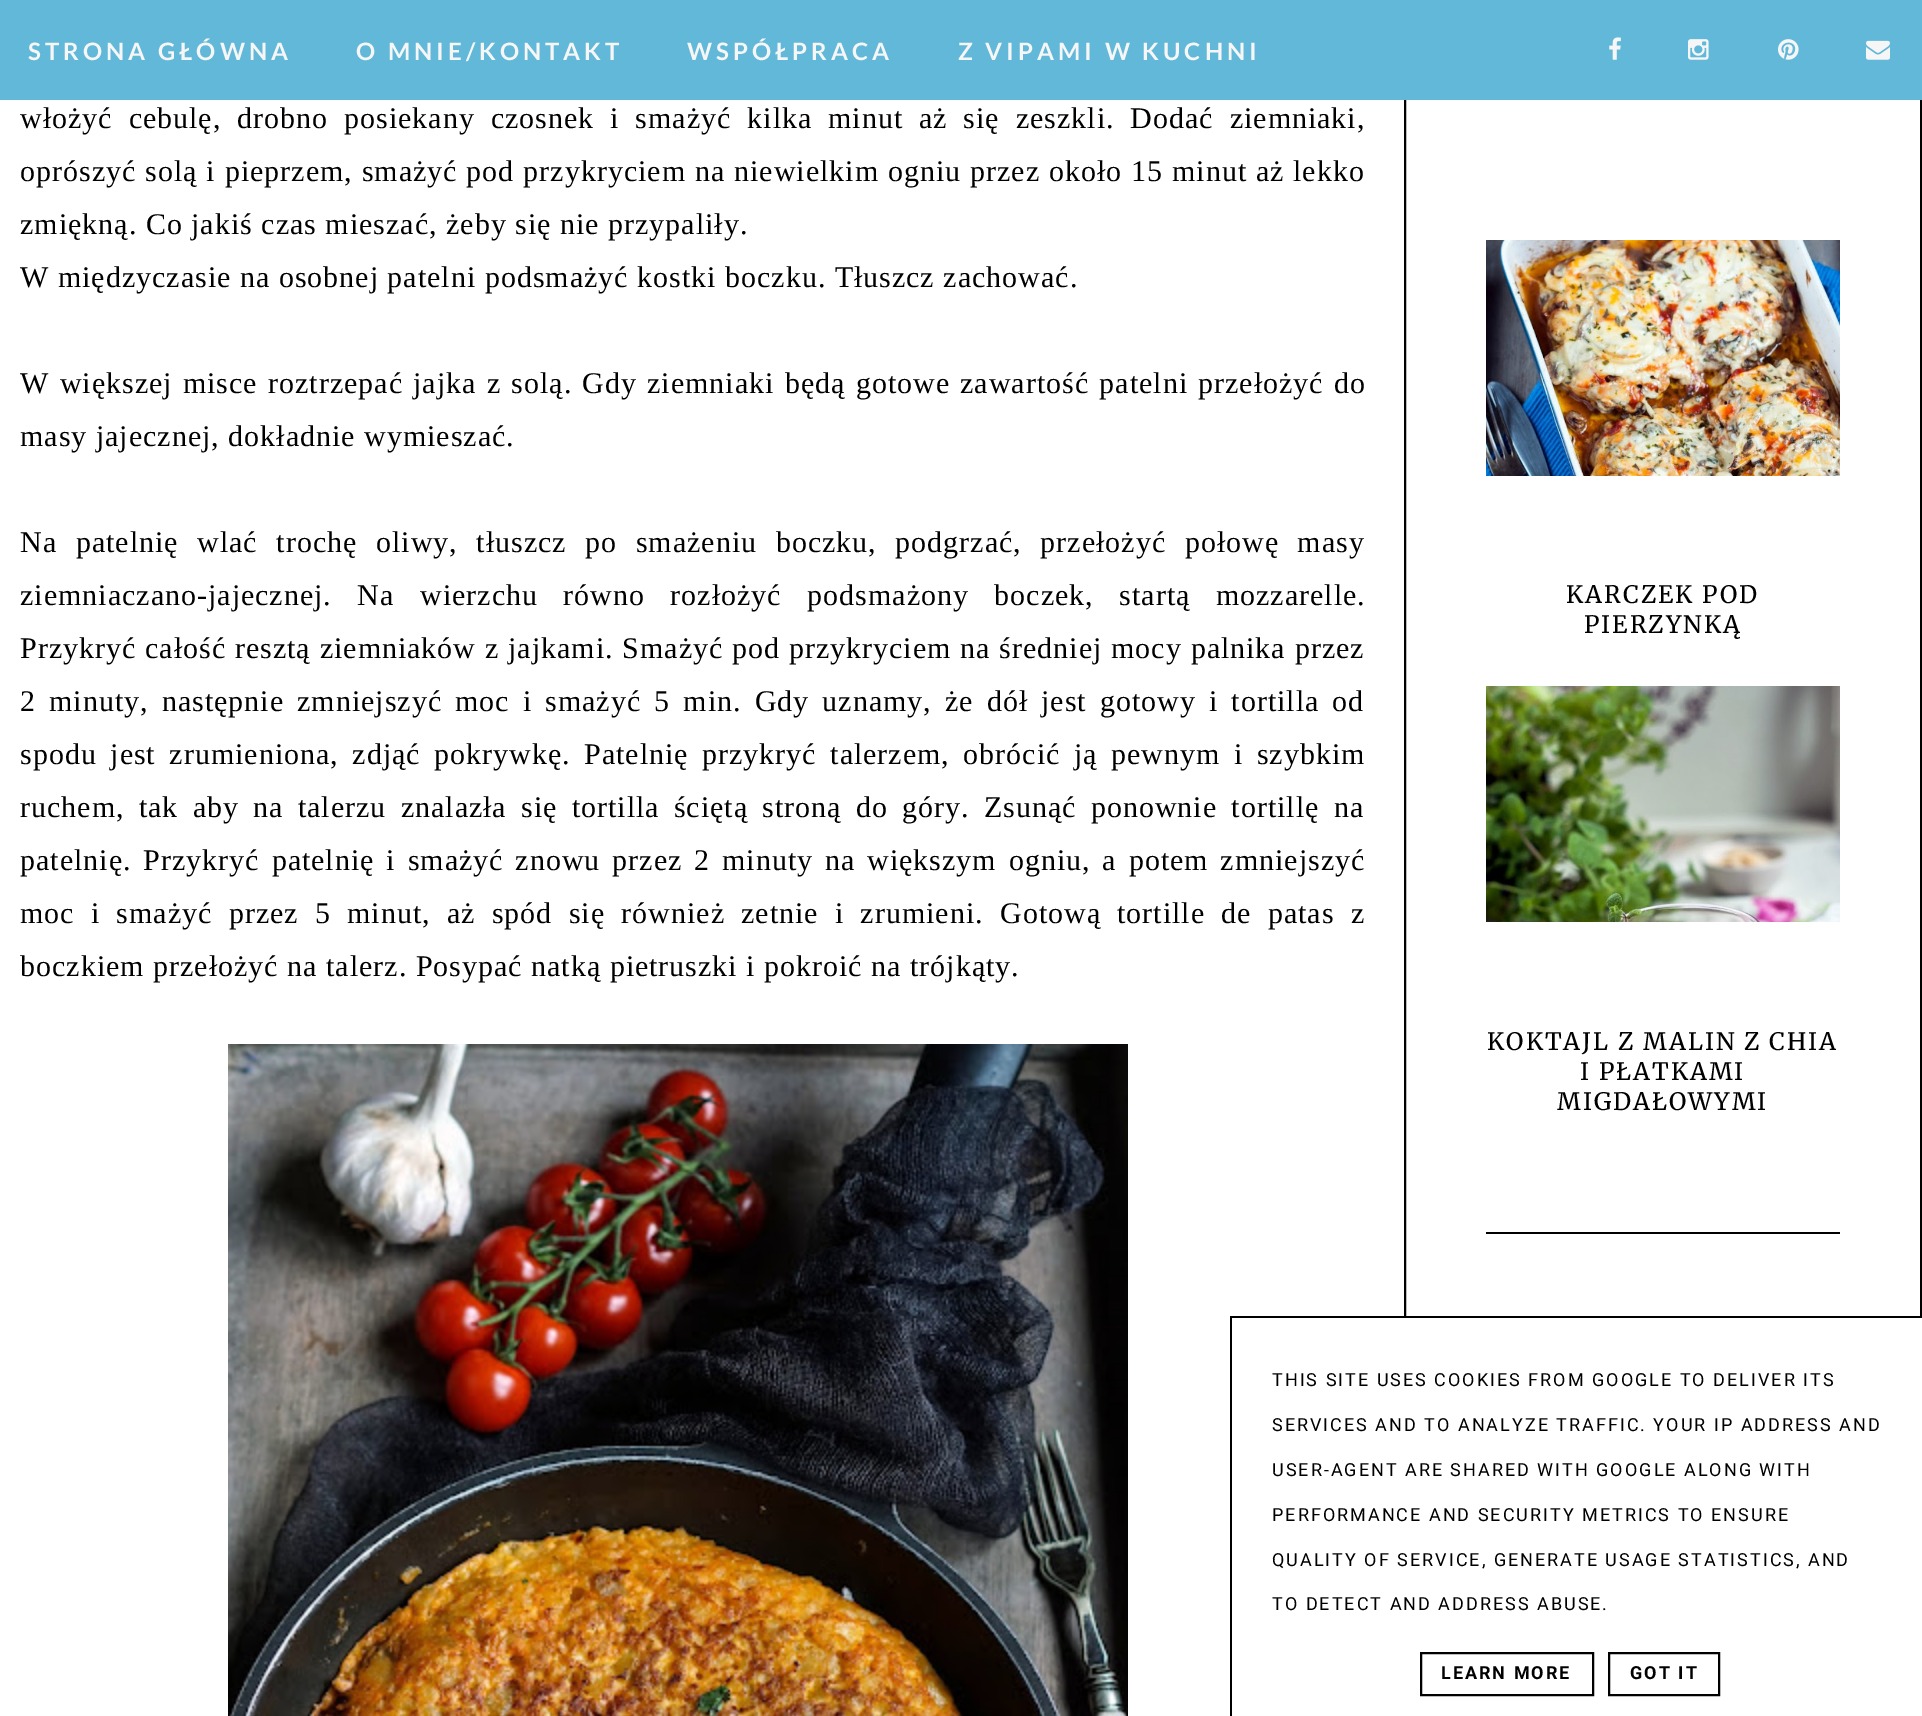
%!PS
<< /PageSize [1922 1716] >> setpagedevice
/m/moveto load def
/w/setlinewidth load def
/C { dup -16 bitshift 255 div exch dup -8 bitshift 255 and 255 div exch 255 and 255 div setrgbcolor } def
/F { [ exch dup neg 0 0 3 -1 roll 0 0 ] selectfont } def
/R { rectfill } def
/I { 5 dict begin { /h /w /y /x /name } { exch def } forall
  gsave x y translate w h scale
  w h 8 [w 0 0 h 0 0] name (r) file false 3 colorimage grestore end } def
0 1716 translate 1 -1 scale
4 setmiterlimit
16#FFFFFF C
0 0 1922 1716 R
16#000000 C
2 w
1405 -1 516 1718 rectstroke
16#61B8D8 C
0 0 1922 100 R
/Lato-Bold 24 F
16#F6F6F6 C
28 60 m 4 0 (STRONA GŁÓWNA) ashow
356 60 m 4 0 (O MNIE/KONTAKT) ashow
687 60 m 4 0 (WSPÓŁPRACA) ashow
958 60 m 4 0 (Z VIPAMI W KUCHNI) ashow
(1.rgb) 1609 37 12 23 I
(2.rgb) 1688 39 21 21 I
(3.rgb) 1778 39 21 21 I
(4.rgb) 1866 40 24 20 I
/LiberationSerif-Regular 30 F
16#000000 C
20 128 m 7.4 0 32 1 0 (włożyć cebulę, drobno posiekany czosnek i smażyć kilka minut aż się zeszkli. Dodać ziemniaki,) awidthshow
20 181 m .4 0 32 1 0 (oprószyć solą i pieprzem, smażyć pod przykryciem na niewielkim ogniu przez około 15 minut) awidthshow
1256 181 m 1 0 (aż lekko) ashow
20 234 m 1 0 (zmiękną. Co jakiś czas mieszać, żeby się nie przypaliły.) ashow
20 287 m 1 0 (W międzyczasie na osobnej patelni podsmażyć kostki boczku. Tłuszcz zachować.) ashow
20 393 m 1.75 0 32 1 0 (W większej misce roztrzepać jajka z solą. Gdy ziemniaki będą gotowe zawartość patelni przełożyć do) awidthshow
20 446 m 1 0 (masy jajecznej, dokładnie wymieszać.) ashow
20 552 m 10.1 0 32 1 0 (Na patelnię wlać trochę oliwy, tłuszcz po smażeniu boczku, podgrzać, przełożyć połowę masy) awidthshow
20 605 m 17 0 32 1 0 (ziemniaczano-jajecznej. Na wierzchu równo rozłożyć podsmażony boczek, startą mozzarelle.) awidthshow
20 658 m .3 0 32 1 0 (Przykryć całość resztą ziemniaków z jajkami. Smażyć pod przykryciem na średniej mocy palnika przez) awidthshow
20 711 m 4.6 0 32 1 0 (2 minuty, następnie) awidthshow
297 711 m 1 0 (zmniejszyć) ashow
455 711 m 4.6 0 32 1 0 (moc i smażyć 5 min. Gdy uznamy, że dół jest gotowy i tortilla od) awidthshow
20 764 m 5 0 32 1 0 (spodu jest zrumieniona, zdjąć pokrywkę. Patelnię przykryć talerzem, obrócić ją pewnym i szybkim) awidthshow
20 817 m 5.75 0 32 1 0 (ruchem, tak aby na talerzu znalazła się tortilla ściętą stroną do góry. Zsunąć ponownie tortillę na) awidthshow
20 870 m 3.4 0 32 1 0 (patelnię. Przykryć patelnię i smażyć znowu przez 2 minuty na większym ogniu, a potem zmniejszyć) awidthshow
20 923 m 7.75 0 32 1 0 (moc i smażyć przez 5 minut, aż spód się również zetnie i zrumieni. Gotową tortille de patas z) awidthshow
20 976 m 1 0 (boczkiem przełożyć na talerz. Posypać natką pietruszki i pokroić na trójkąty.) ashow
(5.rgb) 228 1044 900 672 I
1486 1232 354 2 R
(6.rgb) 1486 240 354 236 I
/Merriweather-Regular 24 F
1566 603 m 2 0 (KARCZEK POD) ashow
1584 633 m 2 0 (PIERZYNKĄ) ashow
(7.rgb) 1486 686 354 236 I
1487 1050 m 2 0 (KOKTAJL Z MALIN Z CHIA) ashow
1580 1080 m 2 0 (I PŁATKAMI) ashow
1557 1110 m 2 0 (MIGDAŁOWYMI) ashow
16#FFFFFF C
1404 1318 518 398 R
16#000000 C
1230 1316 692 2 R
1230 1316 2 400 R
/Roboto-Regular 18 F
1272 1386 m 2 0 (THIS SITE USES COOKIES FROM GOOGLE TO DELIVER ITS) ashow
1272 1431 m 2 0 (SERVICES AND TO ANALYZE TRAFFIC. YOUR IP ADDRESS AND) ashow
1272 1476 m 2 0 (USER-AGENT ARE SHARED WITH GOOGLE ALONG WITH) ashow
1272 1521 m 2 0 (PERFORMANCE AND SECURITY METRICS TO ENSURE) ashow
1272 1566 m 2 0 (QUALITY OF SERVICE, GENERATE USAGE STATISTICS, AND) ashow
1272 1610 m 2 0 (TO DETECT AND ADDRESS ABUSE.) ashow
1421 1653 172 42 rectstroke
/Roboto-Bold 18 F
1441 1679 m 2 0 (LEARN MORE) ashow
1609 1653 110 42 rectstroke
1630 1679 m 2 0 (GOT IT) ashow
showpage
